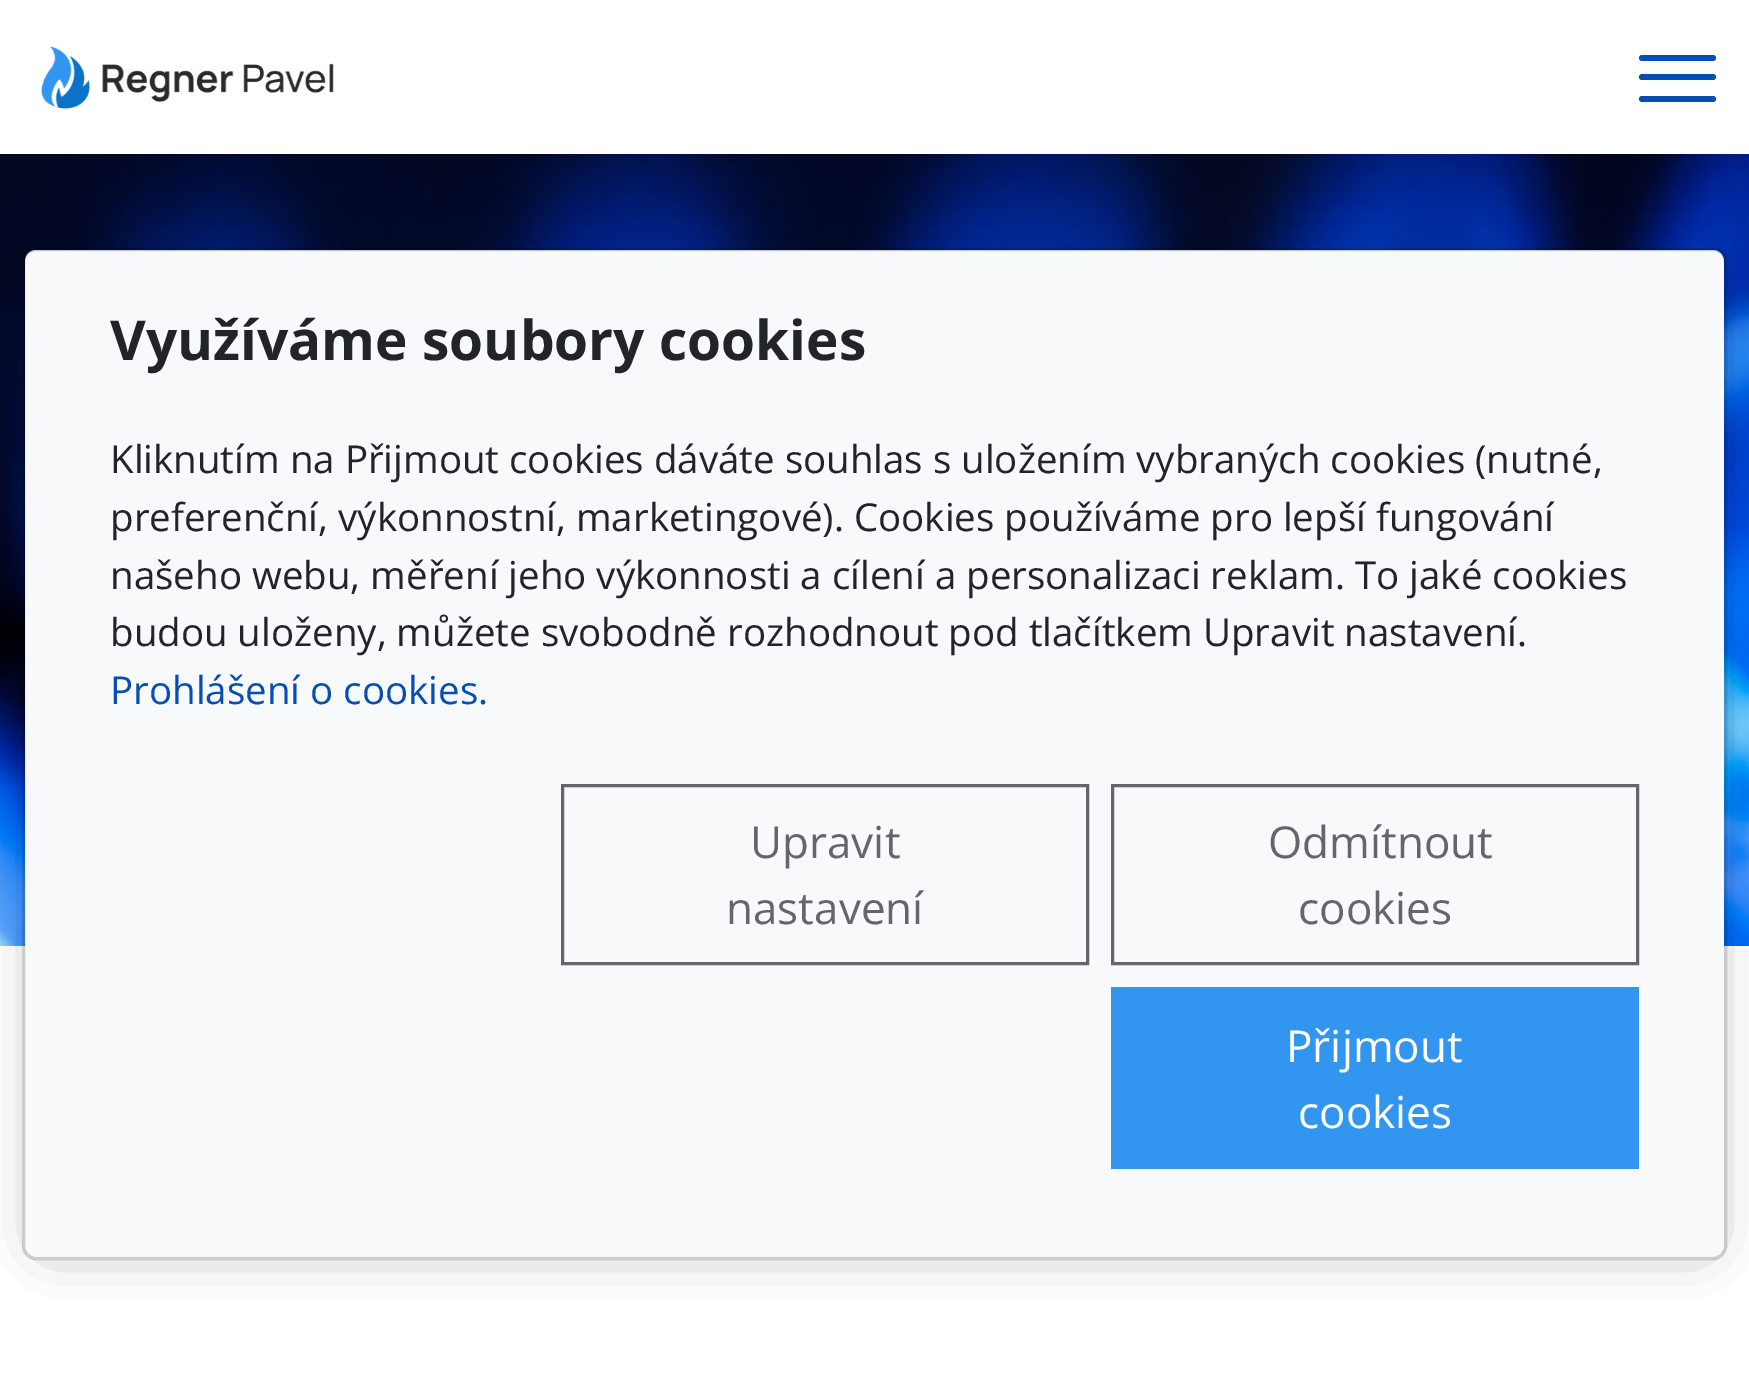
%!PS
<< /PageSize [1749 1378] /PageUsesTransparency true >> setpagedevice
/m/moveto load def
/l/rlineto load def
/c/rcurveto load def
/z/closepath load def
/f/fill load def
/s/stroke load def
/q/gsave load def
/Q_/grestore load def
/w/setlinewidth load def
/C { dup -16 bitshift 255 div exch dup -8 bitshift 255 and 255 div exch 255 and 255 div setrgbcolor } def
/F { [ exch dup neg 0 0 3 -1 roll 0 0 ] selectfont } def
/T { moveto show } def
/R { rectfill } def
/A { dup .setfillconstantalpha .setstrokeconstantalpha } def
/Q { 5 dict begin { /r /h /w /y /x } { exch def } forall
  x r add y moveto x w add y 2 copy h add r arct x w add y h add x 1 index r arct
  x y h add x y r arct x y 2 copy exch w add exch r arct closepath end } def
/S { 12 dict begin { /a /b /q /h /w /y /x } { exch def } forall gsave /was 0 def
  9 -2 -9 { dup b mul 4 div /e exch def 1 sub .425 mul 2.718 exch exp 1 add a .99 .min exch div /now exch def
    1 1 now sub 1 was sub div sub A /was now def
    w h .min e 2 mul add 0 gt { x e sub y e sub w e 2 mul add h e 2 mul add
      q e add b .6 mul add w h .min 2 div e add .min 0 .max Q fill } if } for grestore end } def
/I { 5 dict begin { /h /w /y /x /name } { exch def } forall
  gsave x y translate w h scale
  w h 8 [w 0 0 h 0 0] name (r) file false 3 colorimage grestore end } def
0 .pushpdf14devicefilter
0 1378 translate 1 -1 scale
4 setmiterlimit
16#FFFFFF C
0 0 1749 1378 R
(1.rgb) 41 46 293 63 I
16#074EB3 C
1639 55 77 6 3 Q f
1639 74 77 6 3 Q f
1639 96 77 6 3 Q f
(2.rgb) 0 154 1749 792 I
q
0 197 m 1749 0 l 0 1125 l -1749 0 l z 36 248 m 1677 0 l 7.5 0 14 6.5 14 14 c 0 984 l 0 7.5 -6.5 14 -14 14 c -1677 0 l -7.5 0 -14 -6.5 -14 -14 c 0 -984 l 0 -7.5 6.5 -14 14 -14 c z eoclip newpath
16#000000 C
50 281 1650 957 0 27.5 .5 S
Q_
16#F8F9FA C
25 250 1699 1007 11 Q f
0.2 A
16#000000 C
3 w
23.5 249.5 1702 1009 12.5 Q s
/OpenSans-Bold 55 F
1 A
16#212529 C
(Využíváme soubory cookies) 110 360 T
/OpenSans-Regular 38.5 F
(Kliknutím na Přijmout cookies dáváte souhlas s uložením vybraných cookies \(nutné,) 110 473 T
(preferenční, výkonnostní, marketingové\). Cookies používáme pro lepší fungování) 110 531 T
(našeho webu, měření jeho výkonnosti a cílení a personalizaci reklam. To jaké cookies) 110 589 T
(budou uloženy, můžete svobodně rozhodnout pod tlačítkem Upravit nastavení.) 110 646 T
16#074EB3 C
(Prohlášení o cookies.) 110 704 T
16#646669 C
562.5 785.5 525 178 rectstroke
/OpenSans-Regular 44 F
(Upravit) 750 858 T
(nastavení) 726 924 T
1112.5 785.5 525 178 rectstroke
(Odmítnout) 1268 858 T
(cookies) 1298 924 T
16#3296F0 C
1111 987 528 182 R
16#FFFFFF C
(Přijmout) 1286 1062 T
(cookies) 1298 1128 T
.poppdf14devicefilter showpage
